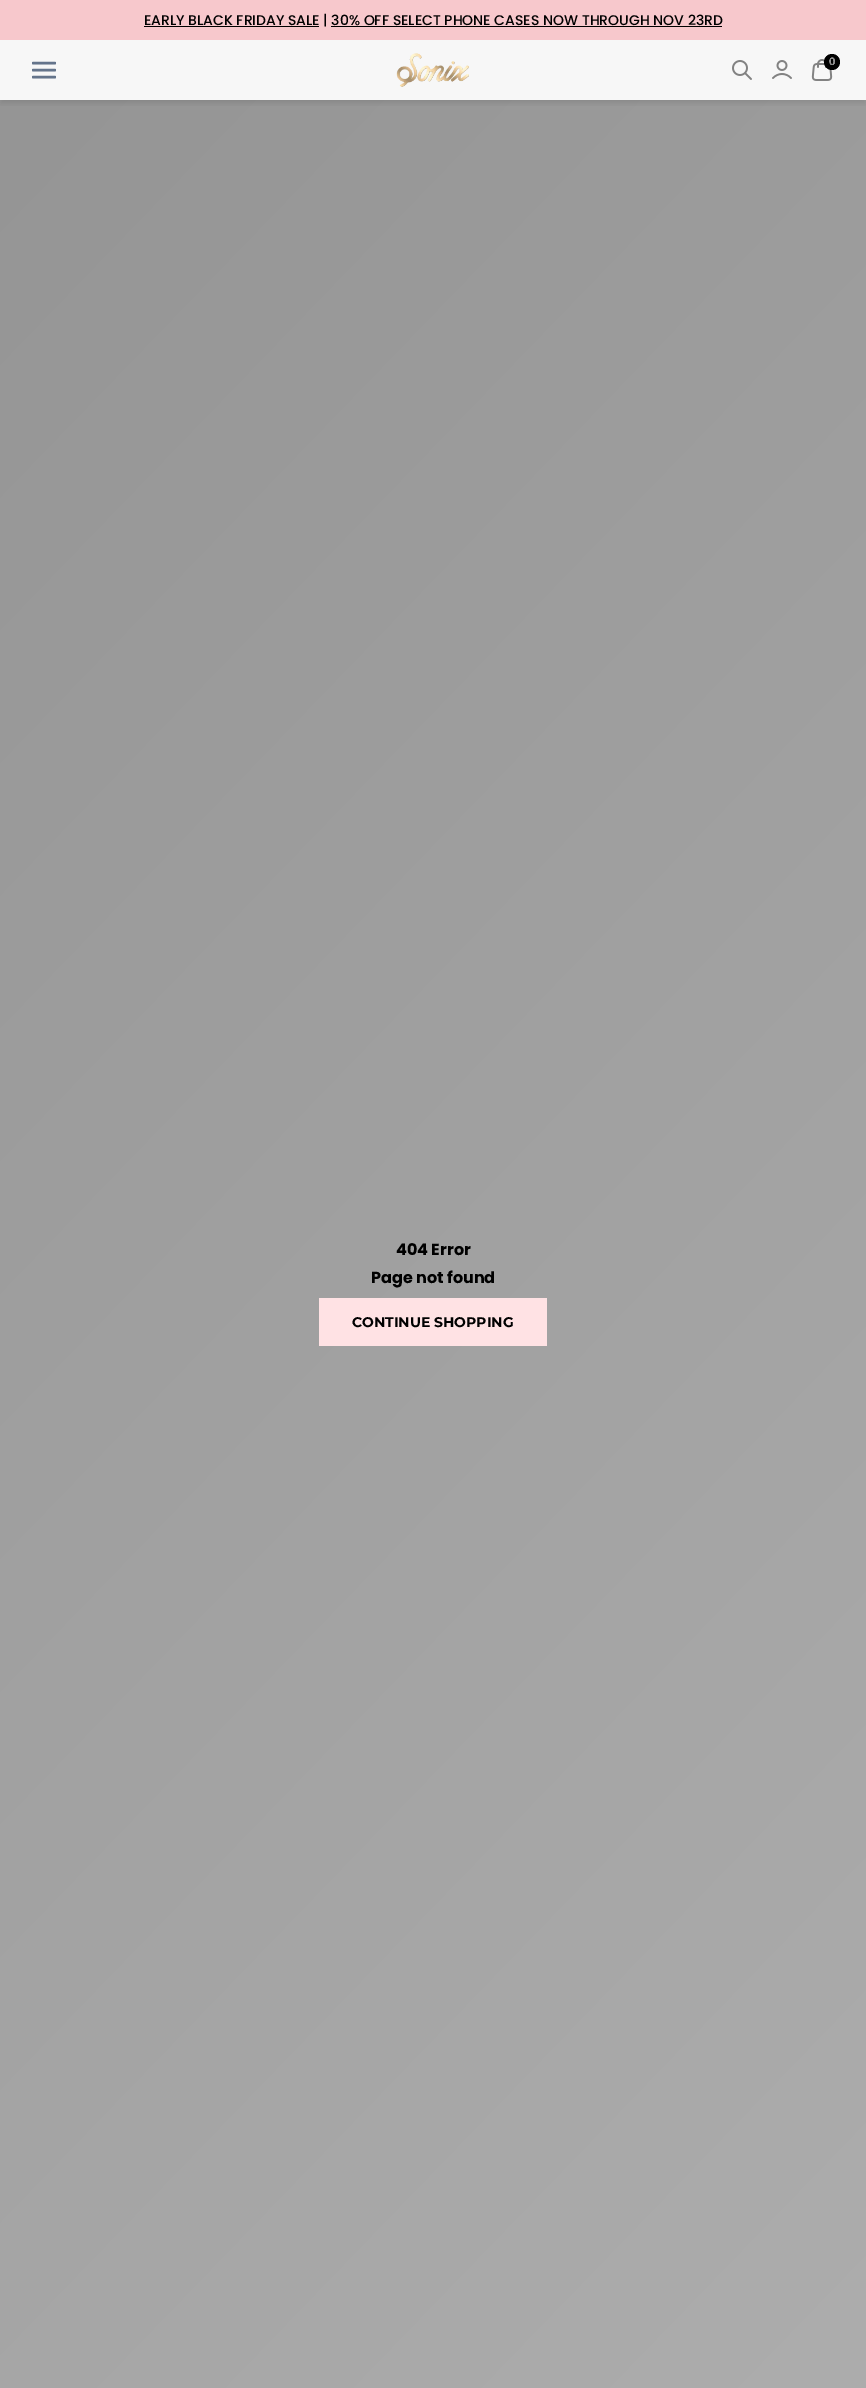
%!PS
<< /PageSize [866 2388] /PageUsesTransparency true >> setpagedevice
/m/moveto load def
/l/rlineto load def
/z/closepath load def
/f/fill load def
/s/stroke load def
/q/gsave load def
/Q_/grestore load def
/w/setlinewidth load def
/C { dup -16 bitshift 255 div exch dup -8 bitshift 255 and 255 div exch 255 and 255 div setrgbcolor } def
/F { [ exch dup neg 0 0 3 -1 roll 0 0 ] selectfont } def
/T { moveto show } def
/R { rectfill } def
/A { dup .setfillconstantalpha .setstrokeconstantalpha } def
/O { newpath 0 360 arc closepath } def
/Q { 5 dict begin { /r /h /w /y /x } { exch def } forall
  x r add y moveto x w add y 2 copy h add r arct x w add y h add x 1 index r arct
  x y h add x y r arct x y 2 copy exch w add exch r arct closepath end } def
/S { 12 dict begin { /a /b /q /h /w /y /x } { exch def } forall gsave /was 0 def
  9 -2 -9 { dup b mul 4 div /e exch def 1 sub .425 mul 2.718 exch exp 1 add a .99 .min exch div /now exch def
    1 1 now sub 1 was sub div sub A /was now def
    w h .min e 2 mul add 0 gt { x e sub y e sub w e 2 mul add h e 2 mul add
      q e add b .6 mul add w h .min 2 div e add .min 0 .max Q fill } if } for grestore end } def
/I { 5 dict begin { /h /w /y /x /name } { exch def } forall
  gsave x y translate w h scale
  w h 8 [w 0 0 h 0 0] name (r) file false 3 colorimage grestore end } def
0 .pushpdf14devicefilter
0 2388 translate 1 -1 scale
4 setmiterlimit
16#FFFFFF C
0 0 866 2388 R
q 0 40 m 866 0 l 0 60 l -866 0 l z clip newpath
<< /ShadingType 2 /ColorSpace /DeviceRGB /Coords [433 0 433 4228] /Extend [true true] /Function << /FunctionType 2 /Domain [0 1] /C0 [.969 .969 .969] /C1 [.973 .973 .973] /N 1 >> >> shfill Q_
16#F7C8CC C
0 0 866 40 R
16#000000 C
144 26 175 1 R
/Poppins-Medium 14 F
(EARLY BLACK FRIDAY SALE | 30% OFF SELECT PHONE CASES NOW THROUGH NOV 23RD) 144 25 T
331 26 391 1 R
q 0 100 m 866 0 l 0 2288 l -866 0 l z clip newpath
<< /ShadingType 2 /ColorSpace /DeviceRGB /Coords [-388 501 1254 2087] /Extend [true true] /Function << /FunctionType 2 /Domain [0 1] /C0 [.584 .584 .584] /C1 [.682 .682 .682] /N 1 >> >> shfill Q_
q
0 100 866 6 rectclip
1 45 864 58 0 3 .1 S
Q_
(1.rgb) 396 53 73 34 I
(2.rgb) 732 60 20 20 I
(3.rgb) 772 60 20 19 I
(4.rgb) 811 59 22 22 I
832 62 8 O f
/Poppins-Medium 10 F
16#FFFFFF C
(0) 829 65 T
q
32 58 24 24 rectclip
16#64748B C
2.4 w
1 setlinecap
1 setlinejoin
33 70 m 22 0 l 33 63 m 22 0 l 33 77 m 22 0 l s
Q_
16#838383 C
(0) 829 65 T
/Poppins-Bold 16 F
16#000000 C
(404 Error) 396 1255 T
(Page not found) 371 1283 T
16#FFE2E4 C
319 1298 228 48 R
/Montserrat-Bold 14 F
16#000000 C
(CONTINUE SHOPPING) 352 1327 T
.poppdf14devicefilter showpage
